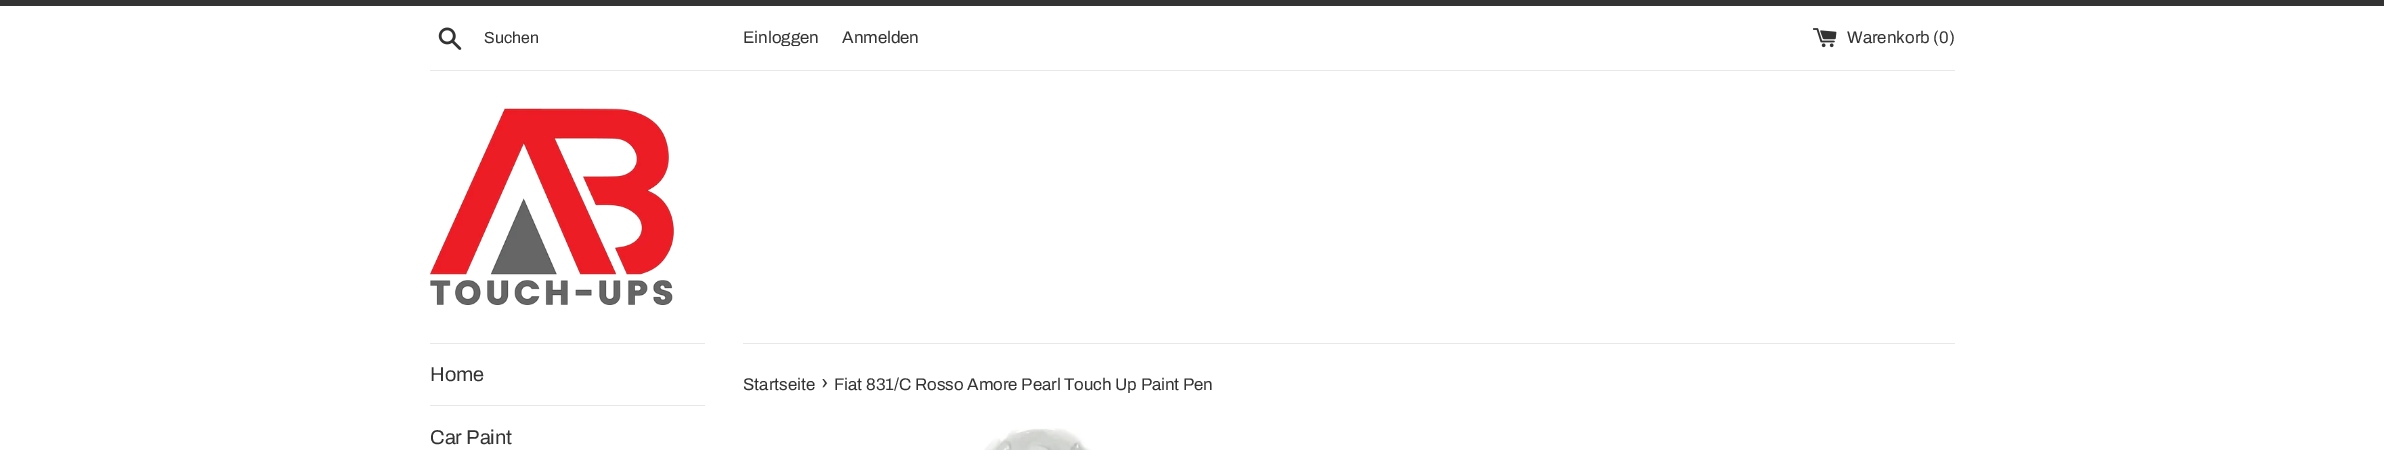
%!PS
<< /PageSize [2384 450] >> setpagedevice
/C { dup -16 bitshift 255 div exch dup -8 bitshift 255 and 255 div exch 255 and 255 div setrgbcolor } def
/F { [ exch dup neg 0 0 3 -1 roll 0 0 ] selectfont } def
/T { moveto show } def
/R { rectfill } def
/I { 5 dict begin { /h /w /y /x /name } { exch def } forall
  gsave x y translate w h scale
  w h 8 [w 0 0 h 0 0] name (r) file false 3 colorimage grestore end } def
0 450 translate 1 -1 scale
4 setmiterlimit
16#FFFFFF C
0 0 2384 450 R
16#333333 C
0 0 2384 6 R
(1.rgb) 438 27 24 23 I
/Archivo-Regular 16 F
(Suchen) 484 43 T
/Archivo-Regular 16.9 F
(Einloggen) 743 43 T
(Anmelden) 842 43 T
(2.rgb) 1813 28 24 20 I
(Warenkorb \(0\)) 1847 43 T
16#E8E8E8 C
430 70 1525 1 R
(3.rgb) 430 108 244 197 I
430 343 275 1 R
430 405 275 1 R
/Archivo-Regular 20 F
16#333333 C
(Home) 430 381 T
(Car Paint) 430 444 T
16#E8E8E8 C
743 343 1212 1 R
/Archivo-Regular 16.9 F
16#333333 C
(Startseite) 743 390 T
/Archivo-Regular 21 F
(›) 821 390 T
/Archivo-Regular 16.9 F
(Fiat 831/C Rosso Amore Pearl Touch Up Paint Pen) 834 390 T
(4.rgb) 984 428 107 22 I
showpage
